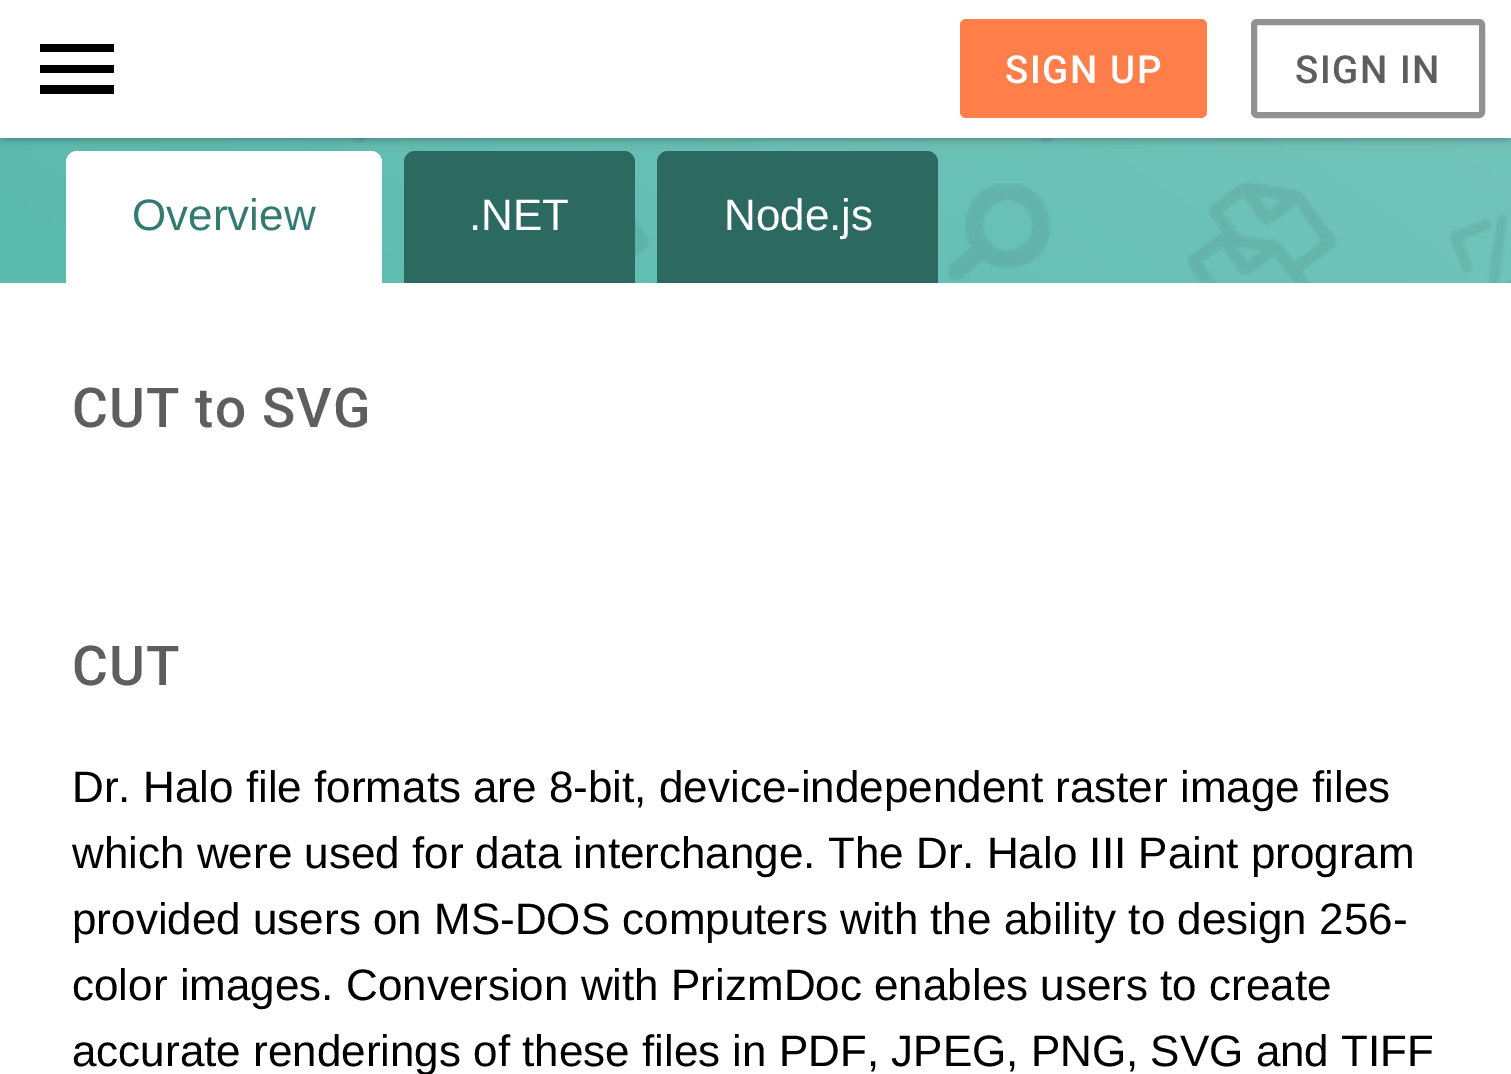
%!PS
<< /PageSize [1511 1074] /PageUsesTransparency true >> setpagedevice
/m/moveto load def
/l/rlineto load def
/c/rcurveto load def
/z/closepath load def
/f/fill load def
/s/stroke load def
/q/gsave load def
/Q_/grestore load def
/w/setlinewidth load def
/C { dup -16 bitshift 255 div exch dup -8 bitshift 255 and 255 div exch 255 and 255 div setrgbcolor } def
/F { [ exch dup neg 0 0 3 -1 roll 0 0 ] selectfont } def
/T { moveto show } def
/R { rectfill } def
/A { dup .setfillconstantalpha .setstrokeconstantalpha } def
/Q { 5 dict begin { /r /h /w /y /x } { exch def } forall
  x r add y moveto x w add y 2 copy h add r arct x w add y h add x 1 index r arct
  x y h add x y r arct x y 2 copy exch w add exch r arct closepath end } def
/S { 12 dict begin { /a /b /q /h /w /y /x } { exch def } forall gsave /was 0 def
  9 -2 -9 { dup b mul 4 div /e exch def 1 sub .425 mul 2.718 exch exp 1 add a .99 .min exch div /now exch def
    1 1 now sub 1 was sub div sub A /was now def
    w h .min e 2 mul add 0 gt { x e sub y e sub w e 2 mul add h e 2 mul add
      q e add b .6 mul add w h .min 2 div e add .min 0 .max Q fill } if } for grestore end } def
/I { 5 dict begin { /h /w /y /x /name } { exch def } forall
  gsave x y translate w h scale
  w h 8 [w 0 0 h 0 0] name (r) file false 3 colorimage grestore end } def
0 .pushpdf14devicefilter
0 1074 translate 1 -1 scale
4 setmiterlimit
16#FFFFFF C
0 0 1511 1074 R
q 0 138 m 1511 0 l 0 145 l -1511 0 l z clip newpath
<< /ShadingType 2 /ColorSpace /DeviceRGB /Coords [1415 -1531 97 351] /Extend [true true] /Function << /FunctionType 3 /Domain [0 1] /Functions [<< /FunctionType 2 /Domain [0 1] /C0 [.494 .788 .753] /C1 [.494 .788 .753] /N 1 >> << /FunctionType 2 /Domain [0 1] /C0 [.494 .788 .753] /C1 [.353 .729 .682] /N 1 >>] /Bounds [.35] /Encode [0 1 0 1] >> >> shfill Q_
(1.rgb) 349 138 1162 145 I
77 151 m 294 0 l 6 0 11 5 11 11 c 0 121 l -316 0 l 0 -121 l 0 -6 5 -11 11 -11 c z f
16#2C6961 C
415 151 m 209 0 l 6 0 11 5 11 11 c 0 121 l -231 0 l 0 -121 l 0 -6 5 -11 11 -11 c z f
668 151 m 259 0 l 6 0 11 5 11 11 c 0 121 l -281 0 l 0 -121 l 0 -6 5 -11 11 -11 c z f
16#000000 C
0 3 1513 137 0 7 .06 S
0 6 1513 137 0 3 .07 S
6 14 1501 126 0 1.5 .1 S
16#FFFFFF C
0 0 1511 138 R
16#000000 C
40 44 m 74 0 l 0 8 l -74 0 l 0 -8 l 40 65 m 74 0 l 0 8 l -74 0 l 0 -8 l 40 85 m 74 0 l 0 9 l -74 0 l z f
16#FF7E4A C
960 19 247 99 6 Q f
/Roboto-Medium 38.5 F
16#FFFFFF C
1005 83 m 1.5 0 (SIGN UP) ashow
16#919191 C
6 w
1254 22 228 93 3 Q s
16#5E5E5E C
1295 83 m 1.5 0 (SIGN IN) ashow
/LiberationSans-Regular 44 F
16#337B72 C
(Overview) 132 230 T
16#FFFFFF C
(.NET) 469 230 T
(Node.js) 724 230 T
/Roboto-Medium 55 F
16#5E5E5E C
72 427 m 1.1 0 (CUT to SVG) ashow
72 685 m 1.1 0 (CUT) ashow
/LiberationSans-Regular 44 F
16#000000 C
(Dr. Halo file formats are 8-bit, device-independent raster image files) 72 802 T
(which were used for data interchange. The Dr. Halo III Paint program) 72 868 T
(provided users on MS-DOS computers with the ability to design 256-) 72 934 T
(color images. Conversion with PrizmDoc enables users to create) 72 1000 T
(accurate renderings of these files in PDF, JPEG, PNG, SVG and TIFF) 72 1066 T
.poppdf14devicefilter showpage
